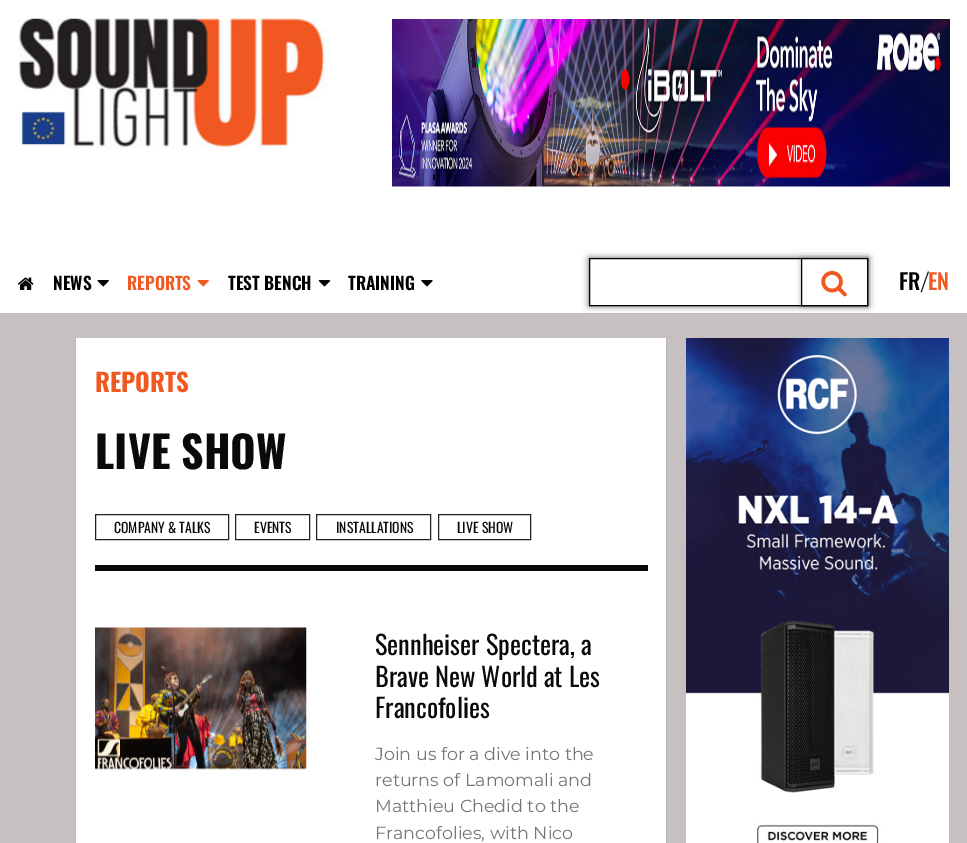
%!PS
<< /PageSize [967 843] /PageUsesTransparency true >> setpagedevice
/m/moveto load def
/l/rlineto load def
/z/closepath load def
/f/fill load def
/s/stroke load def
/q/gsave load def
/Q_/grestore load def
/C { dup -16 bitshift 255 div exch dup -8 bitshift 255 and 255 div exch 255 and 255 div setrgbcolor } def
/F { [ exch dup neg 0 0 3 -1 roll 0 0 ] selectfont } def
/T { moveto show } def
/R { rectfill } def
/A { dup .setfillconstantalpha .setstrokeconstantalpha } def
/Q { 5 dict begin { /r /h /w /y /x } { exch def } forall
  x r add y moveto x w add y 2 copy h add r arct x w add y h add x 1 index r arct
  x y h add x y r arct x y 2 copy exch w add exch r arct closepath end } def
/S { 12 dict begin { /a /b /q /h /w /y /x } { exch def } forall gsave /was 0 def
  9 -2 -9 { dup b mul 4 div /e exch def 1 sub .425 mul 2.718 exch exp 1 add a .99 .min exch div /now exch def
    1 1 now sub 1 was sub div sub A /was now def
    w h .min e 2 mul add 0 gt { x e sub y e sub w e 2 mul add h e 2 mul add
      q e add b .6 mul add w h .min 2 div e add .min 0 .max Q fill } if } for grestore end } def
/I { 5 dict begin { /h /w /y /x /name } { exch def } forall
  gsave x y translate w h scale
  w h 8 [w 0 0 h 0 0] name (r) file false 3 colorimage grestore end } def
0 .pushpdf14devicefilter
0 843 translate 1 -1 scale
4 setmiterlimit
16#FFFFFF C
0 0 967 843 R
(1.rgb) 18 18 309 131 I
(2.rgb) 21 111 45 34 I
(3.rgb) 392 19 558 168 I
(4.rgb) 17 277 17 13 I
/Oswald-SemiBold 17.5 F
16#000000 C
(NEWS) 53 290 T
(5.rgb) 97 280 12 7 I
16#F15922 C
(REPORTS) 127 290 T
(6.rgb) 197 280 12 7 I
16#000000 C
(TEST BENCH) 228 290 T
(7.rgb) 318 280 13 7 I
(TRAINING) 348 290 T
(8.rgb) 421 280 12 7 I
16#C6C1C0 C
0 313 967 530 R
16#282828 C
589 258 279 48 0 4 .4 S
16#FFFFFF C
590 259 211 46 R
q
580 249 m 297 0 l 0 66 l -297 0 l z 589 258 m 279 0 l 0 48 l -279 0 l z eoclip newpath
16#282828 C
589 258 279 48 0 2.5 .4 S
Q_
16#000000 C
589.5 258.5 278 47 rectstroke
16#282828 C
801 258 67 48 0 2.5 .4 S
16#FFFFFF C
801.5 258.5 m 66 0 l 0 47 l -66 0 l z q f Q_
16#000000 C
s
(9.rgb) 821 270 26 27 I
/Oswald-Medium 22 F
(FR) 899 290 T
/Montserrat-Thin 22 F
16#222222 C
(/) 921 290 T
/Oswald-Medium 22 F
16#F15922 C
(EN) 928 290 T
16#FFFFFF C
76 338 590 505 R
16#B9B9B9 C
666 338 1 505 R
75 338 1 505 R
/Oswald-Bold 25 F
16#F15922 C
(REPORTS) 95 392 T
/Oswald-Bold 43.75 F
16#0A0A0A C
(LIVE SHOW) 95 469 T
95 565 553 6 R
16#222222 C
95.5 514.5 133 25 rectstroke
/Oswald-Regular 13.75 F
16#0A0A0A C
(COMPANY & TALKS) 114 533 T
16#222222 C
235.5 514.5 74 25 rectstroke
16#0A0A0A C
(EVENTS) 254 533 T
16#222222 C
316.5 514.5 114 25 rectstroke
16#0A0A0A C
(INSTALLATIONS) 336 533 T
16#222222 C
438.5 514.5 92 25 rectstroke
16#0A0A0A C
(LIVE SHOW) 457 533 T
(10.rgb) 95 627 212 143 I
/Oswald-Regular 26.25 F
(Sennheiser Spectera, a) 375 655 T
(Brave New World at Les) 375 687 T
(Francofolies) 375 718 T
/Montserrat-Thin 17.5 F
16#767676 C
(Join us for a dive into the) 375 760 T
(returns of Lamomali and) 375 786 T
(Matthieu Chedid to the) 375 812 T
(Francofolies, with Nico) 375 839 T
(11.rgb) 686 338 263 505 I
.poppdf14devicefilter showpage
